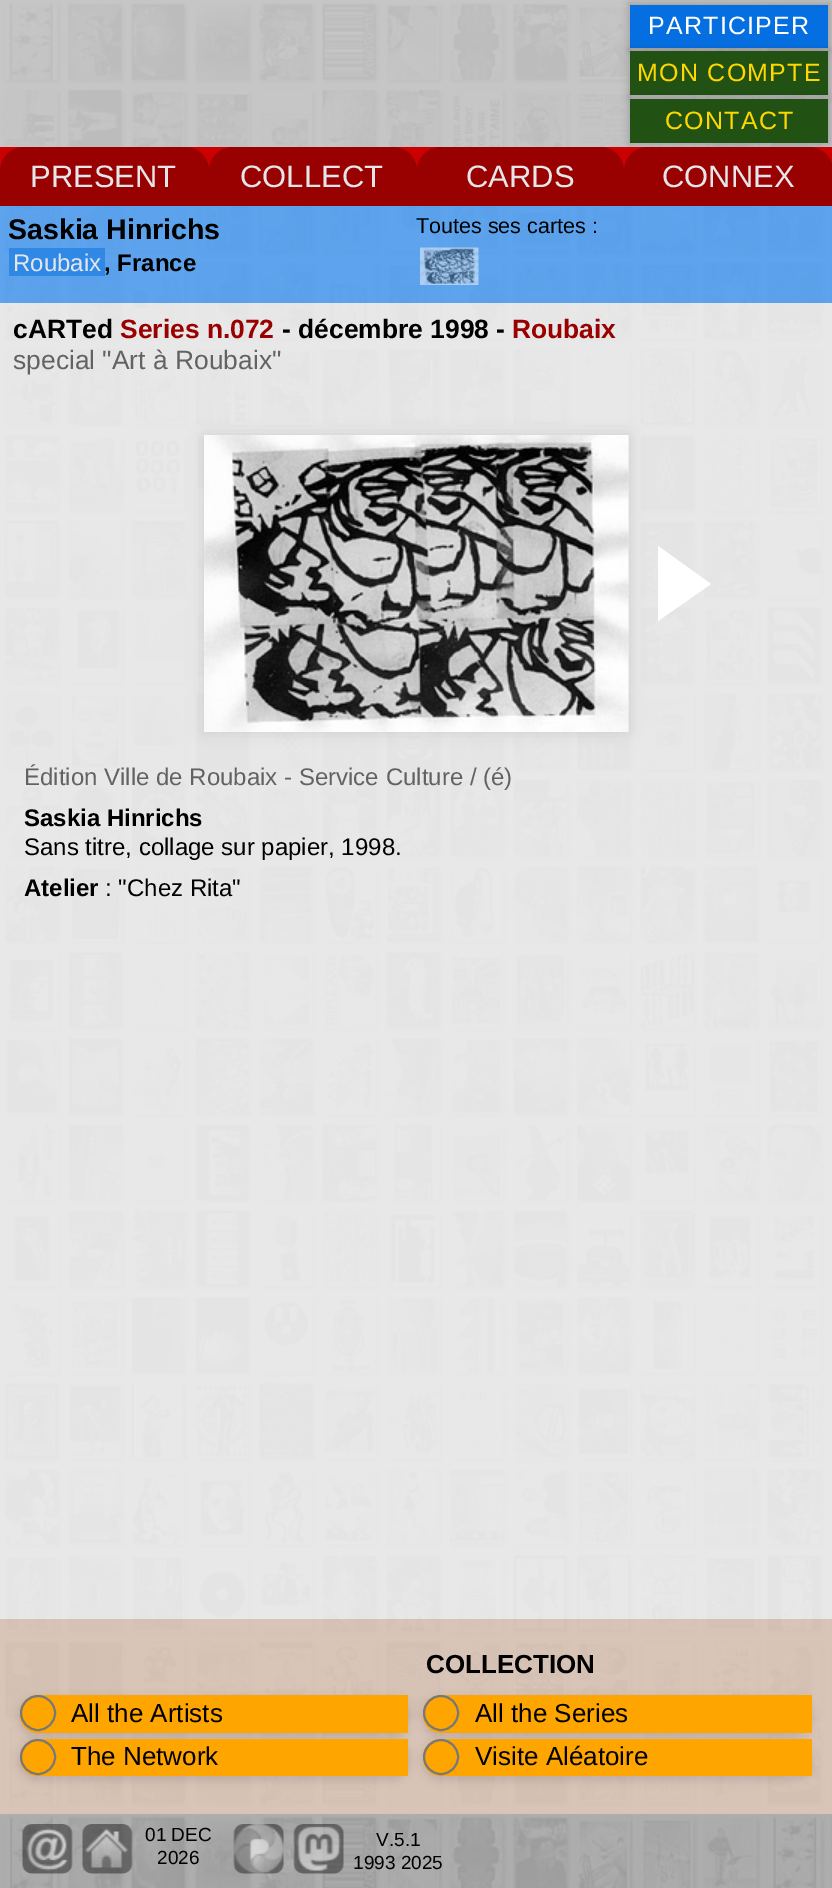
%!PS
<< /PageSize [832 1888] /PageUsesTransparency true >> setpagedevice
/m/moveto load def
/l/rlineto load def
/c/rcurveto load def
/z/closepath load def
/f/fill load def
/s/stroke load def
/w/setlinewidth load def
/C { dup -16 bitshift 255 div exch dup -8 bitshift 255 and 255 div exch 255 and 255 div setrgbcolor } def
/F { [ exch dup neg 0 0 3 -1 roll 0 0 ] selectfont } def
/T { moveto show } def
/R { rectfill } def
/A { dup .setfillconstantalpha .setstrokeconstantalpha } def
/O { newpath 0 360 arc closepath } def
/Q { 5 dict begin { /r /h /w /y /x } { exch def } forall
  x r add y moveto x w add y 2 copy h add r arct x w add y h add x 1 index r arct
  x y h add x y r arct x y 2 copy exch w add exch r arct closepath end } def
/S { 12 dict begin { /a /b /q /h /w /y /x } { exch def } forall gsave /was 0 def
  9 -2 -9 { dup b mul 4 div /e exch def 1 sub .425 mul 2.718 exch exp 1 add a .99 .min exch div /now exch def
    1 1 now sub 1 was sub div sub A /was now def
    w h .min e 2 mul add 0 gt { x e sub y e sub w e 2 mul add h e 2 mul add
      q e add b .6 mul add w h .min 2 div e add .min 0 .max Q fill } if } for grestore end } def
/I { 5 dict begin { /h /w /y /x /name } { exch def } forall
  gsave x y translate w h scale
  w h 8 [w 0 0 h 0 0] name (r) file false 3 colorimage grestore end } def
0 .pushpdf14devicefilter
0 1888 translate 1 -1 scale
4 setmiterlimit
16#FFFFFF C
0 0 832 1888 R
(1.rgb) 0 0 832 1814 I
16#000000 C
629 3 201 47 0 4 .2 S
16#056FE1 C
630 5 198 43 R
/LiberationSans-Regular 25 F
16#FFFFFF C
648 34 m 1.25 0 (PARTICIPER) ashow
16#000000 C
629 50 201 46 0 4 .2 S
16#215214 C
630 51 198 44 R
16#FFD700 C
637 81 m 1.25 0 (MON COMPTE) ashow
16#000000 C
629 98 201 46 0 4 .2 S
16#215214 C
630 99 198 44 R
16#FFD700 C
665 129 m 1.25 0 (CONTACT) ashow
16#CC0000 C
0 147 832 24 R
16#990000 C
24 147 m 161 0 l 13.5 0 24 10.5 24 24 c 0 35 l -209 0 l 0 -35 l 0 -13.5 10.5 -24 24 -24 c z f
/LiberationSans-Regular 31 F
16#E4E6E9 C
(PRESENT) 30 187 T
16#990000 C
233 147 m 160 0 l 13.5 0 24 10.5 24 24 c 0 35 l -208 0 l 0 -35 l 0 -13.5 10.5 -24 24 -24 c z f
16#E4E6E9 C
(COLLECT) 240 187 T
16#990000 C
441 147 m 159 0 l 13.5 0 24 10.5 24 24 c 0 35 l -207 0 l 0 -35 l 0 -13.5 10.5 -24 24 -24 c z f
16#E4E6E9 C
(CARDS) 466 187 T
16#990000 C
648 147 m 161 0 l 13.5 0 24 10.5 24 24 c 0 35 l -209 0 l 0 -35 l 0 -13.5 10.5 -24 24 -24 c z f
16#E4E6E9 C
(CONNEX) 662 187 T
0.7 A
16#3094FD C
0 206 832 97 R
/LiberationSans-Bold 28.5 F
1 A
16#000000 C
(Saskia Hinrichs) 8 239 T
0.5 A
16#056FE1 C
9 248 96 28 R
/LiberationSans-Regular 24 F
1 A
16#E4E6E9 C
(Roubaix) 13 271 T
/LiberationSans-Bold 24 F
16#000000 C
(, France) 104 271 T
/LiberationSans-Regular 21.5 F
(Toutes ses cartes :) 416 233 T
(2.rgb) 420 247 59 38 I
0.6 A
16#FFFFFF C
0 303 832 1316 R
/LiberationSans-Bold 26.4 F
1 A
16#000000 C
(cARTed) 13 338 T
16#990000 C
(Series n.072) 120 338 T
16#000000 C
(- décembre 1998 -) 282 338 T
16#990000 C
(Roubaix) 512 338 T
/LiberationSans-Regular 26.4 F
16#626262 C
(special "Art à Roubaix") 13 369 T
16#000000 C
204 435 425 297 0 7.5 .1 S
(3.rgb) 204 435 425 297 I
16#FFFFFF C
658 621 m 0 -75 l 53 38 l z f
/LiberationSans-Regular 24 F
16#626262 C
(Édition Ville de Roubaix - Service Culture / \(é\)) 24 785 T
/LiberationSans-Bold 24 F
16#000000 C
(Saskia Hinrichs) 24 826 T
/LiberationSans-Regular 24 F
(Sans titre, collage sur papier, 1998.) 24 855 T
/LiberationSans-Bold 24 F
(Atelier) 24 896 T
/LiberationSans-Regular 24 F
(: "Chez Rita") 105 896 T
0.5 A
16#EBC4AA C
0 1619 832 195 R
/LiberationSans-Bold 26 F
1 A
16#000000 C
(COLLECTION) 426 1673 T
18 1697 392 40 20 4 .1 S
16#FFA500 C
38 1695 m 370 0 l 0 38 l -370 0 l -10 0 -18 -8 -18 -18 c 0 -2 l 0 -10 8 -18 18 -18 c z f
0.8 A
38 1713 17 O f
1 A
16#787878 C
2 w
38 1713 17 O s
/LiberationSans-Regular 26 F
16#000000 C
(All the Artists) 71 1722 T
422 1697 391 40 20 4 .1 S
16#FFA500 C
441 1695 m 371 0 l 0 38 l -371 0 l -10 0 -18 -8 -18 -18 c 0 -2 l 0 -10 8 -18 18 -18 c z f
0.8 A
441 1713 17 O f
1 A
16#787878 C
441 1713 17 O s
16#000000 C
(All the Series) 475 1722 T
18 1740 392 41 20 4 .1 S
16#FFA500 C
38 1739 m 370 0 l 0 37 l -370 0 l -10 0 -18 -8 -18 -18 c 0 -1 l 0 -10 8 -18 18 -18 c z f
0.8 A
38 1757 17 O f
1 A
16#787878 C
38 1757 17 O s
16#000000 C
(The Network) 71 1765 T
422 1740 391 41 20 4 .1 S
16#FFA500 C
441 1739 m 371 0 l 0 37 l -371 0 l -10 0 -18 -8 -18 -18 c 0 -1 l 0 -10 8 -18 18 -18 c z f
0.8 A
441 1757 17 O f
1 A
16#787878 C
441 1757 17 O s
16#000000 C
(Visite Aléatoire) 475 1765 T
(4.rgb) 0 1814 832 74 I
(5.rgb) 22 1824 51 50 I
(6.rgb) 82 1824 51 50 I
/LiberationSans-Regular 19 F
(01 DEC) 145 1841 T
(2026) 157 1864 T
(7.rgb) 233 1824 51 50 I
(8.rgb) 293 1824 51 50 I
(V.5.1) 376 1846 T
(1993 2025) 353 1869 T
.poppdf14devicefilter showpage
